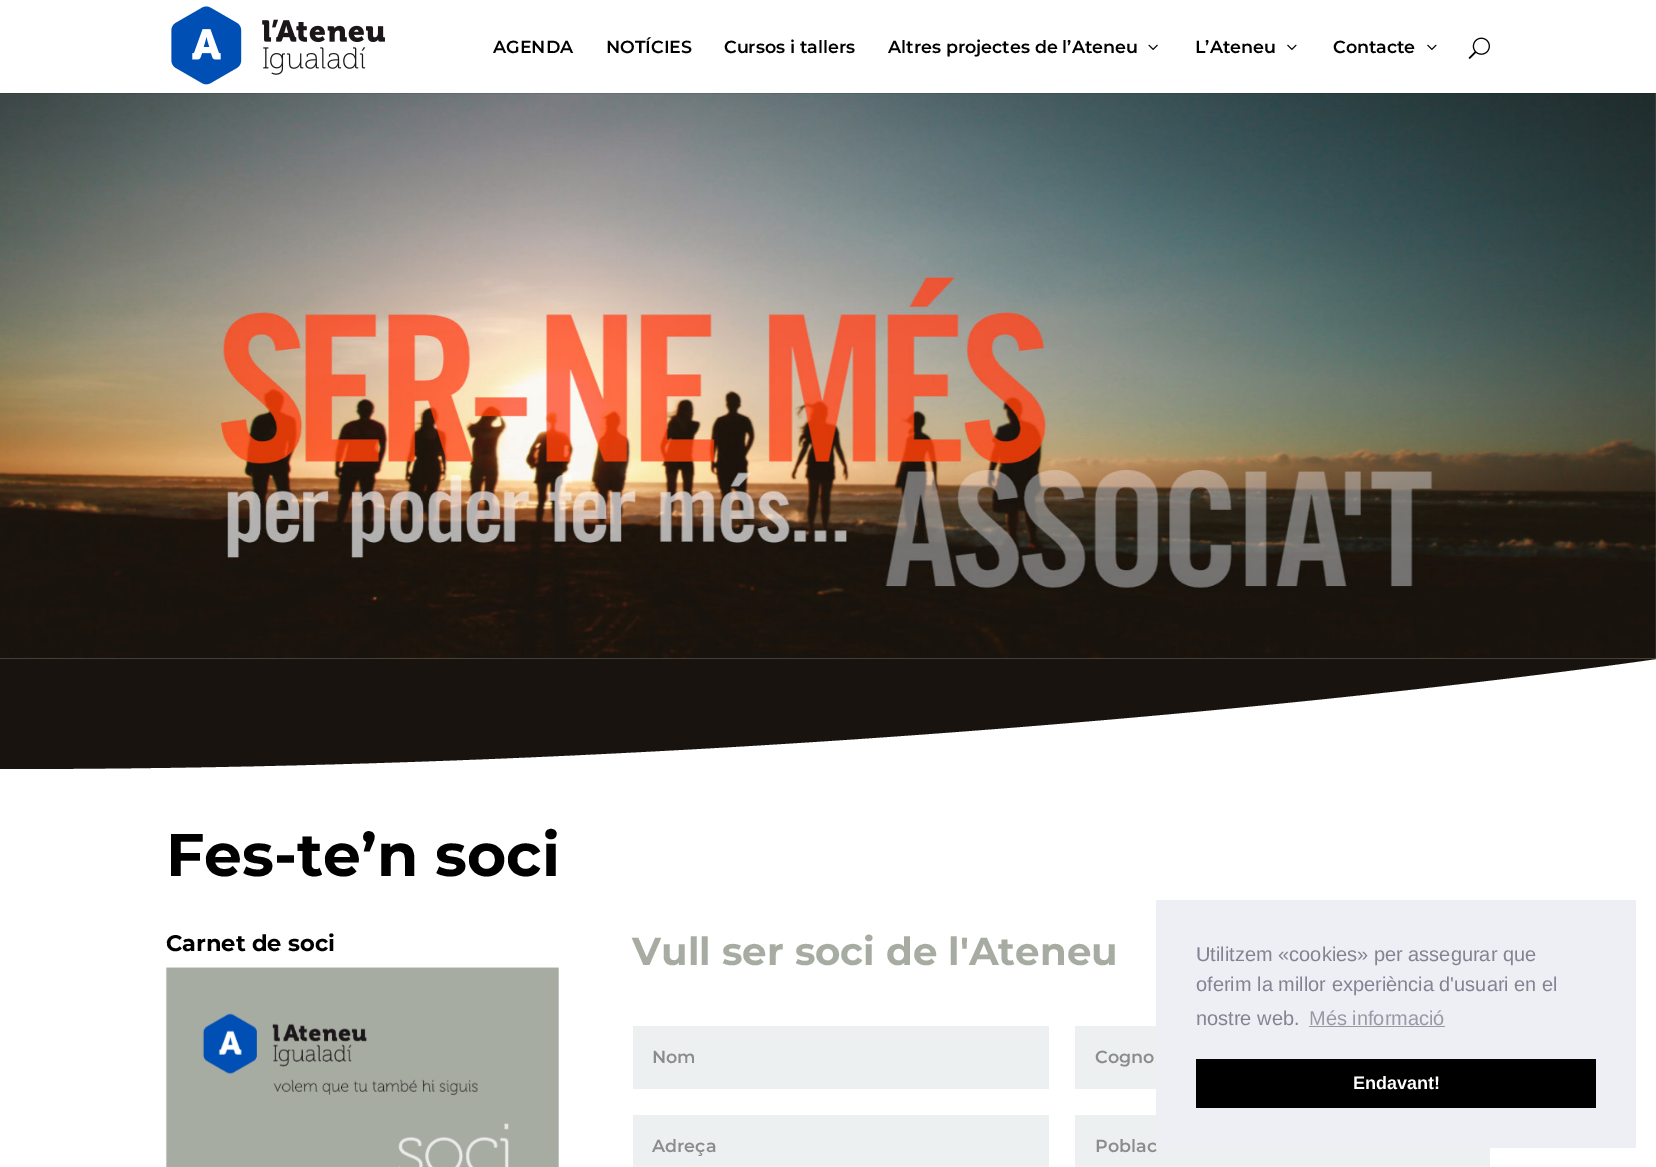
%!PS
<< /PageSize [1656 1167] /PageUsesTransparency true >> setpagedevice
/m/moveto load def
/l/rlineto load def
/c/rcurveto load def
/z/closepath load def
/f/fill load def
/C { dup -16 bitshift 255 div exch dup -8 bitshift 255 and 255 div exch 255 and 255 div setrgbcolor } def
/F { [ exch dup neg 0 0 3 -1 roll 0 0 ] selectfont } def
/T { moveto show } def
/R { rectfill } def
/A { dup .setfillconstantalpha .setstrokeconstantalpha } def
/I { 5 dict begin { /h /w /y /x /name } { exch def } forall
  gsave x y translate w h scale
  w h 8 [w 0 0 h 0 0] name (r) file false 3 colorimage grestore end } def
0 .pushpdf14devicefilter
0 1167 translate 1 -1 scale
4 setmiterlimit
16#FFFFFF C
0 0 1656 1167 R
(5.rgb) 0 93 1656 566 I
0.1 A
16#000000 C
0 93 1656 1 R
1 A
(1.rgb) 171 6 214 79 I
/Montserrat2-Thin 17.5 F
(AGENDA) 493 53 T
(NOTÍCIES) 606 53 T
(Cursos i tallers) 724 53 T
(Altres projectes de l’Ateneu) 888 53 T
(2.rgb) 1148 44 10 6 I
(L’Ateneu) 1195 53 T
(3.rgb) 1287 44 10 6 I
(Contacte) 1333 53 T
(3.rgb) 1427 44 10 6 I
(4.rgb) 1468 37 22 22 I
16#18130E C
1656 659 m 0 0 -741 110 -1656 110 c 0 -110 l z f
/Montserrat-Thin 60 F
16#000000 C
(Fes-te’n soci) 166 876 T
/Montserrat-Thin 22.5 F
(Carnet de soci) 166 951 T
(6.rgb) 165 967 394 200 I
/Montserrat-Thin 38.75 F
16#A7ACA2 C
(Vull ser soci de l'Ateneu) 632 965 T
16#ECF0F1 C
633 1026 416 63 R
/Montserrat2-Thin 17.5 F
16#8C8C8C C
(Nom) 652 1063 T
16#ECF0F1 C
1075 1026 81 63 R
16#8C8C8C C
(Cogno) 1095 1063 T
16#ECF0F1 C
633 1115 416 52 R
16#8C8C8C C
(Adreça) 652 1152 T
16#ECF0F1 C
1075 1115 415 52 R
16#8C8C8C C
(Poblac) 1095 1152 T
16#EDEFF5 C
1156 900 480 248 R
/LiberationSans-Regular 20 F
16#838391 C
(Utilitzem «cookies» per assegurar que) 1196 961 T
(oferim la millor experiència d'usuari en el) 1196 991 T
(nostre web.) 1196 1025 T
16#9899A5 C
(Més informació) 1309 1025 T
1309 1026 136 1 R
16#000000 C
1196 1059 400 49 R
/LiberationSans-Bold 18 F
16#FFFFFF C
(Endavant!) 1353 1089 T
.poppdf14devicefilter showpage
